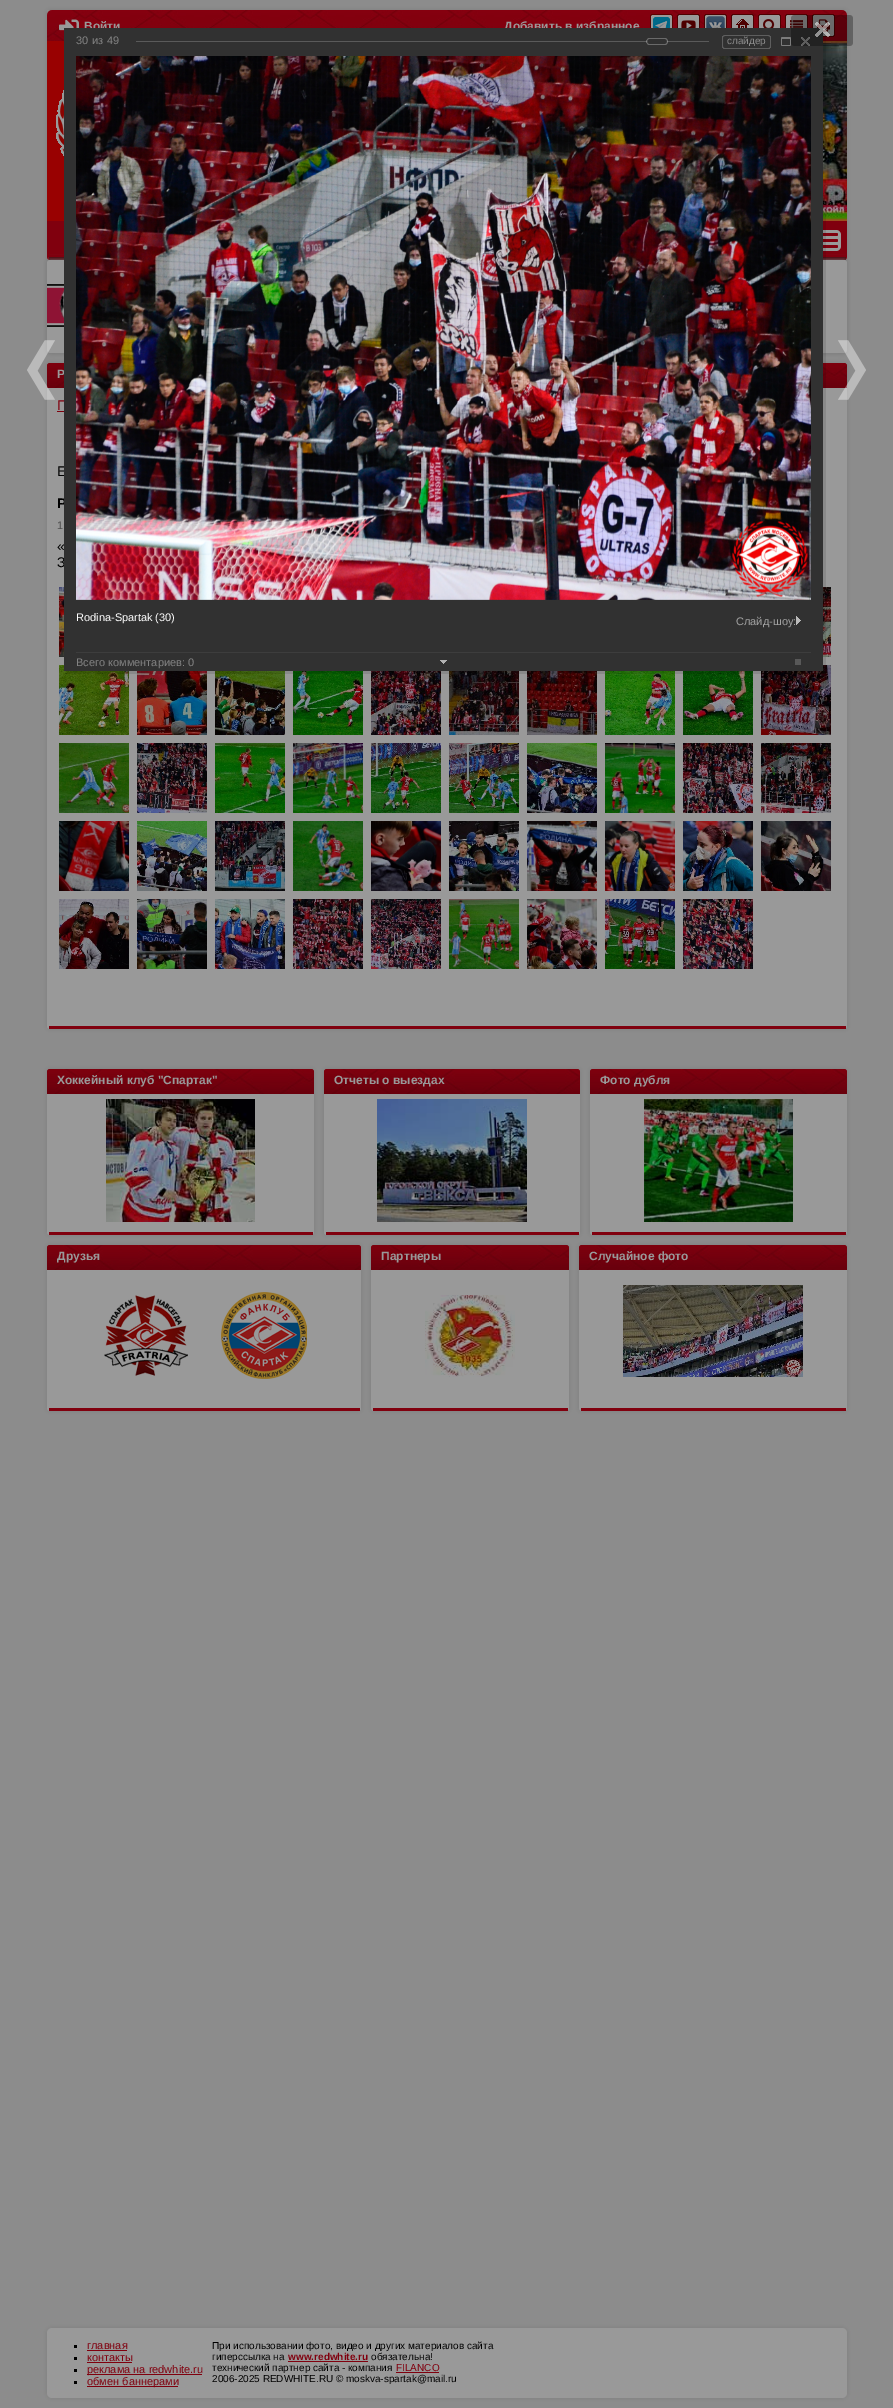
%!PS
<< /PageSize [893 2408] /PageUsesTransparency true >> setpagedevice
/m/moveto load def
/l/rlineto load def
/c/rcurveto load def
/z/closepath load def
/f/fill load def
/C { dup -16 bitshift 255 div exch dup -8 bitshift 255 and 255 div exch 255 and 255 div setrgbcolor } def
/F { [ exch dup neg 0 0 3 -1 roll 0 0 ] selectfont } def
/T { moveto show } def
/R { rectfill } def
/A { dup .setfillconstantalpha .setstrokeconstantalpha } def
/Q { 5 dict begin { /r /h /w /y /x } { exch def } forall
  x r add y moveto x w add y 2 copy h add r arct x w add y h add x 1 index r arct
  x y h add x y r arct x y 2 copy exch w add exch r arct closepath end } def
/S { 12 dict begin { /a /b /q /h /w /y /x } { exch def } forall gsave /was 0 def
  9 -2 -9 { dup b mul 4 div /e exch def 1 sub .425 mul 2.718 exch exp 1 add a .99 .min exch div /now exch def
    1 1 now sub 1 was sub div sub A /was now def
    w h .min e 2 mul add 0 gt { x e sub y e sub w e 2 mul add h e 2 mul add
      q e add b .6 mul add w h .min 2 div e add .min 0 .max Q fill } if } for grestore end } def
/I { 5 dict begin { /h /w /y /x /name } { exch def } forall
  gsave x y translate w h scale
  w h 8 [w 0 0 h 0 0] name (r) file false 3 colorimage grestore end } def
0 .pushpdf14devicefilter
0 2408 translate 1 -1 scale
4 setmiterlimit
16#8C8C8C C
0 0 893 2408 R
16#7D7D7D C
47 10 800 343 3 2.5 1 S
(1.rgb) 47 10 800 31 I
(2.rgb) 59 19 20 12 I
/LiberationSans-Bold 12 F
16#999999 C
(Войти) 84 30 T
(Добавить в избранное) 504 30 T
(3.rgb) 650 14 23 14 I
(4.rgb) 677 14 23 14 I
(5.rgb) 704 14 23 14 I
(6.rgb) 731 14 23 14 I
(7.rgb) 758 14 23 14 I
(8.rgb) 785 14 23 14 I
(9.rgb) 812 14 23 23 I
16#990101 C
47 41 17 180 R
(10.rgb) 823 41 24 180 I
(11.rgb) 56 90 8 66 I
16#80000E C
47 221 m 800 0 l 0 36 l 0 1.5 -1.5 3 -3 3 c -794 0 l -1.5 0 -3 -1.5 -3 -3 c z f
16#490008 C
49 257 797 3 R
16#7D7D7D C
47 260 800 93 3 2.5 1 S
16#80000E C
47 255 800 2 R
16#999999 C
815 230 26 21 5 Q f
16#80000E C
818 233 20 3 1.5 Q f
818 239 20 3 1.5 Q f
818 245 20 3 1.5 Q f
16#999999 C
47 260 800 93 3 Q f
(12.rgb) 47 277 17 54 I
16#7D7D7D C
47 363 800 666 3 2.5 1 S
16#999999 C
47 363 800 666 3 Q f
16#80000E C
49 1026 797 3 R
(13.rgb) 47 363 800 25 I
16#999999 C
(Р) 57 378 T
/LiberationSans-Regular 14 F
16#80000E C
(Г) 57 410 T
57 411 7 1 R
16#000000 C
(Е) 57 476 T
/LiberationSans-Bold 14 F
(Р) 57 508 T
/LiberationSans-Regular 11 F
16#4C4C4C C
(1) 57 529 T
/LiberationSans-Regular 14 F
16#000000 C
(«) 57 551 T
(З) 57 567 T
(14.rgb) 59 587 5 70 I
(15.rgb) 823 587 8 70 I
(16.rgb) 59 665 70 70 I
(17.rgb) 137 671 70 64 I
(18.rgb) 215 671 70 64 I
(19.rgb) 293 671 70 64 I
(20.rgb) 371 671 70 64 I
(21.rgb) 449 671 70 64 I
(22.rgb) 527 671 70 64 I
(23.rgb) 605 671 70 64 I
(24.rgb) 683 671 70 64 I
(25.rgb) 761 665 70 70 I
(26.rgb) 59 743 70 70 I
(27.rgb) 137 743 70 70 I
(28.rgb) 215 743 70 70 I
(29.rgb) 293 743 70 70 I
(30.rgb) 371 743 70 70 I
(31.rgb) 449 743 70 70 I
(32.rgb) 527 743 70 70 I
(33.rgb) 605 743 70 70 I
(34.rgb) 683 743 70 70 I
(35.rgb) 761 743 70 70 I
(36.rgb) 59 821 70 70 I
(37.rgb) 137 821 70 70 I
(38.rgb) 215 821 70 70 I
(39.rgb) 293 821 70 70 I
(40.rgb) 371 821 70 70 I
(41.rgb) 449 821 70 70 I
(42.rgb) 527 821 70 70 I
(43.rgb) 605 821 70 70 I
(44.rgb) 683 821 70 70 I
(45.rgb) 761 821 70 70 I
(46.rgb) 59 899 70 70 I
(47.rgb) 137 899 70 70 I
(48.rgb) 215 899 70 70 I
(49.rgb) 293 899 70 70 I
(50.rgb) 371 899 70 70 I
(51.rgb) 449 899 70 70 I
(52.rgb) 527 899 70 70 I
(53.rgb) 605 899 70 70 I
(54.rgb) 683 899 70 70 I
16#7D7D7D C
47 1069 267 166 3 2.5 1 S
16#999999 C
47 1069 267 166 3 Q f
16#80000E C
49 1232 264 3 R
(55.rgb) 47 1069 267 25 I
/LiberationSans-Bold 12 F
16#999999 C
(Хоккейный клуб "Спартак") 57 1084 T
(56.rgb) 106 1099 149 123 I
16#7D7D7D C
324 1069 256 166 3 2.5 1 S
16#999999 C
324 1069 256 166 3 Q f
16#80000E C
326 1232 253 3 R
(57.rgb) 324 1069 256 25 I
16#999999 C
(Отчеты о выездах) 334 1084 T
(58.rgb) 377 1099 150 123 I
16#7D7D7D C
590 1069 257 166 3 2.5 1 S
16#999999 C
590 1069 257 166 3 Q f
16#80000E C
592 1232 254 3 R
(59.rgb) 590 1069 257 25 I
16#999999 C
(Фото дубля) 600 1084 T
(60.rgb) 644 1099 149 123 I
16#7D7D7D C
47 1245 314 166 3 2.5 1 S
16#999999 C
47 1245 314 166 3 Q f
16#80000E C
49 1408 311 3 R
(61.rgb) 47 1245 314 25 I
16#999999 C
(Друзья) 57 1260 T
(62.rgb) 104 1295 84 81 I
(63.rgb) 221 1292 86 87 I
16#7D7D7D C
371 1245 198 166 3 2.5 1 S
16#999999 C
371 1245 198 166 3 Q f
16#80000E C
373 1408 195 3 R
(64.rgb) 371 1245 198 25 I
16#999999 C
(Партнеры) 381 1260 T
(65.rgb) 425 1295 90 82 I
16#7D7D7D C
579 1245 268 166 3 2.5 1 S
16#999999 C
579 1245 268 166 3 Q f
16#80000E C
581 1408 265 3 R
(66.rgb) 579 1245 268 25 I
16#999999 C
(Случайное фото) 589 1260 T
(67.rgb) 623 1285 180 92 I
16#7D7D7D C
47 2328 800 70 5 2.5 1 S
16#999999 C
47 2328 800 70 5 Q f
16#000000 C
74 2345 3 3 R
/LiberationSans-Regular 11 F
16#80000E C
(главная) 87 2349 T
87 2350 40 1 R
16#000000 C
74 2357 3 3 R
16#80000E C
(контакты) 87 2361 T
87 2362 45 1 R
16#000000 C
74 2369 3 3 R
16#80000E C
87 2374 115 1 R
(реклама на redwhite.ru) 87 2373 T
16#000000 C
74 2381 3 3 R
16#80000E C
87 2386 91 1 R
(обмен баннерами) 87 2385 T
/LiberationSans-Regular 10 F
16#000000 C
(При использовании фото, видео и других материалов сайта) 212 2349 T
(гиперссылка на) 212 2360 T
/LiberationSans-Bold 10 F
16#80000E C
(www.redwhite.ru) 288 2360 T
288 2361 80 1 R
/LiberationSans-Regular 10 F
16#000000 C
(обязательна!) 371 2360 T
(технический партнер сайта - компания) 212 2371 T
16#80000E C
(FILANCO) 396 2371 T
396 2372 43 1 R
16#000000 C
(2006-2025 REDWHITE.RU © moskva-spartak@mail.ru) 212 2382 T
(68.rgb) 27 340 28 60 I
0.1 A
67 28 759 646 R
1 A
16#313131 C
64 28 759 643 R
/LiberationSans-Regular 11 F
16#838383 C
(30) 76 44 T
(из) 92 44 T
(49) 107 44 T
16#5A5A5A C
136 41 573 1 R
(69.rgb) 646 38 22 7 I
(70.rgb) 722 35 46 14 I
/LiberationSans-Regular 10 F
16#8C8C8C C
(слайдер) 727 44 T
(71.rgb) 768 35 3 14 I
(72.rgb) 781 37 10 9 I
(73.rgb) 801 37 9 9 I
(74.rgb) 76 56 735 544 I
16#3D3D3D C
76 652 735 1 R
/LiberationSans-Regular 11 F
16#FFFFFF C
(Rodina-Spartak \(30\)) 76 621 T
16#A2A2A2 C
(Слайд-шоу:) 736 625 T
(75.rgb) 796 616 5 9 I
16#838383 C
(Всего комментариев: 0) 76 666 T
(76.rgb) 440 660 7 4 I
16#585858 C
795 659 6 6 R
(77.rgb) 791 15 62 31 I
(78.rgb) 838 340 28 60 I
.poppdf14devicefilter showpage
